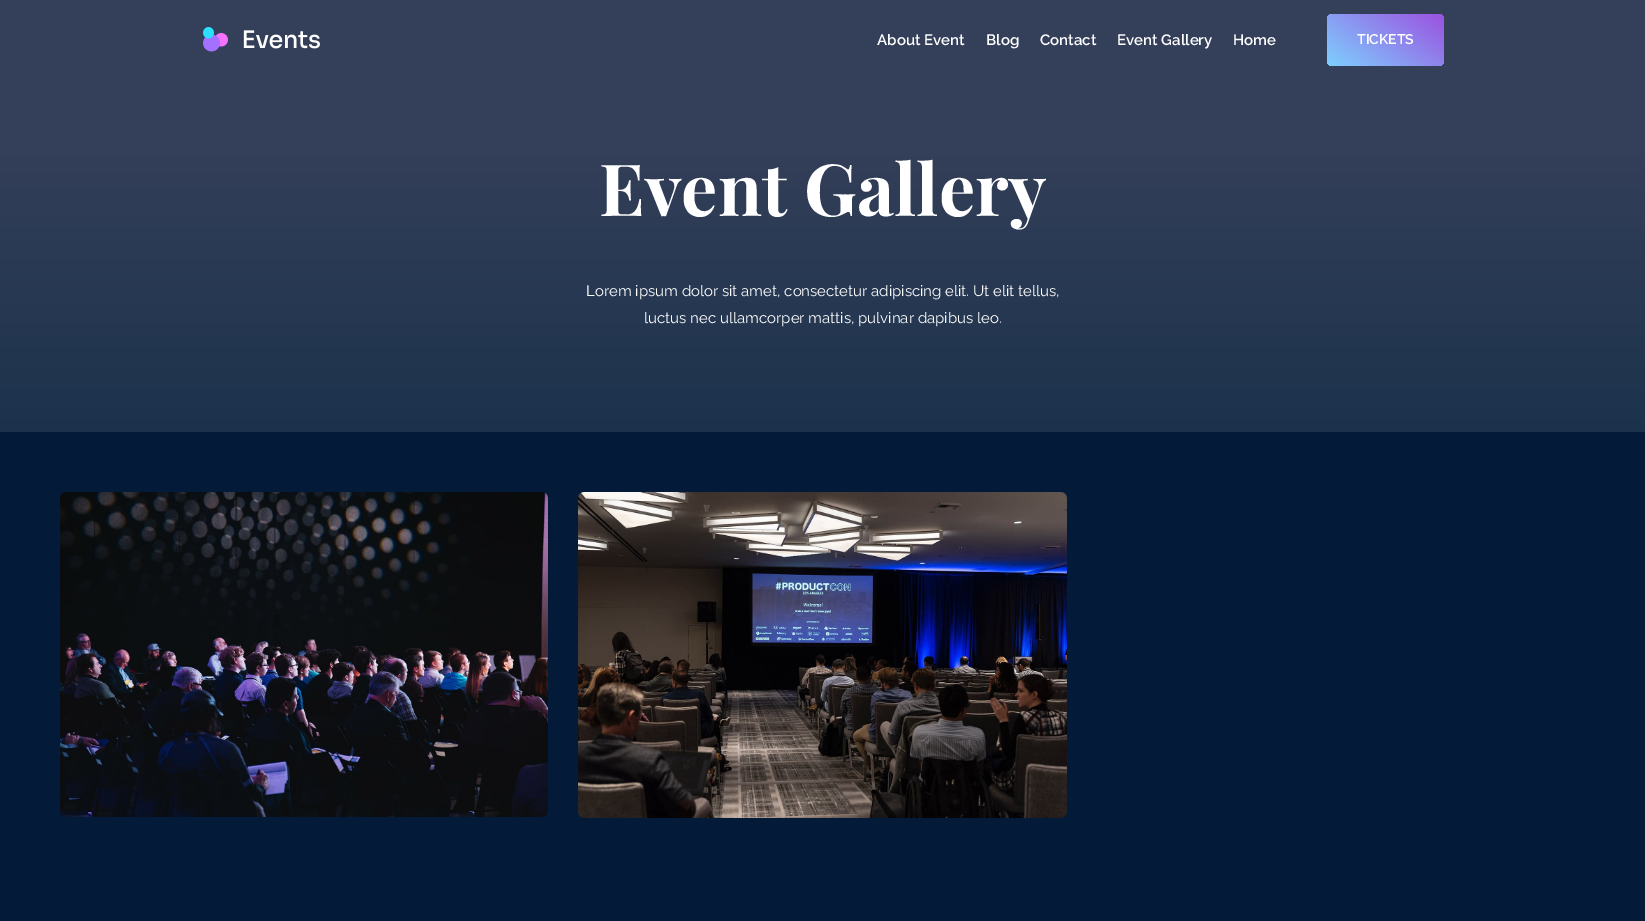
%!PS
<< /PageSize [1645 921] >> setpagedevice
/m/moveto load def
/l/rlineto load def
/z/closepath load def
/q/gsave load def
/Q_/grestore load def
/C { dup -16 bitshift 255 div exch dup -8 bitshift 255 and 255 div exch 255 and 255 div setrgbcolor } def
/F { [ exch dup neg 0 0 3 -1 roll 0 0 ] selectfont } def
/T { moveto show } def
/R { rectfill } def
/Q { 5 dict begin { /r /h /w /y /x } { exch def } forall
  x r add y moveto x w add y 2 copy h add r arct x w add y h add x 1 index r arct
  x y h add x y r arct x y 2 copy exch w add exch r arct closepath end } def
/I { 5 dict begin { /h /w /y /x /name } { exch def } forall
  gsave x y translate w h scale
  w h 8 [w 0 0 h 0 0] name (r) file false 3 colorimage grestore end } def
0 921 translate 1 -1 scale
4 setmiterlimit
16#FFFFFF C
0 0 1645 921 R
q 0 0 m 1645 0 l 0 432 l -1645 0 l z clip newpath
<< /ShadingType 2 /ColorSpace /DeviceRGB /Coords [823 0 823 432] /Extend [true true] /Function << /FunctionType 3 /Domain [0 1] /Functions [<< /FunctionType 2 /Domain [0 1] /C0 [.204 .247 .349] /C1 [.204 .247 .349] /N 1 >> << /FunctionType 2 /Domain [0 1] /C0 [.204 .247 .349] /C1 [.11 .196 .298] /N 1 >>] /Bounds [.35] /Encode [0 1 0 1] >> >> shfill Q_
(1.rgb) 203 27 117 25 I
/Raleway-SemiBold 15 F
(About Event) 877 45 T
(Blog) 986 45 T
(Contact) 1040 45 T
(Event Gallery) 1117 45 T
(Home) 1233 45 T
q 1327 14 117 52 6 Q clip newpath
<< /ShadingType 2 /ColorSpace /DeviceRGB /Coords [1354 85 1417 -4.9] /Extend [true true] /Function << /FunctionType 2 /Domain [0 1] /C0 [.494 .816 1] /C1 [.608 .318 .878] /N 1 >> >> shfill Q_
/Raleway-SemiBold 14 F
(TICKETS) 1357 44 T
/PlayfairDisplay-Bold 72 F
(Event Gallery) 599 216 T
/Raleway-Regular 15 F
(Lorem ipsum dolor sit amet, consectetur adipiscing elit. Ut elit tellus,) 586 296 T
(luctus nec ullamcorper mattis, pulvinar dapibus leo.) 644 323 T
16#031B38 C
0 432 1645 489 R
(2.rgb) 60 492 488 325 I
(3.rgb) 578 492 489 326 I
showpage
